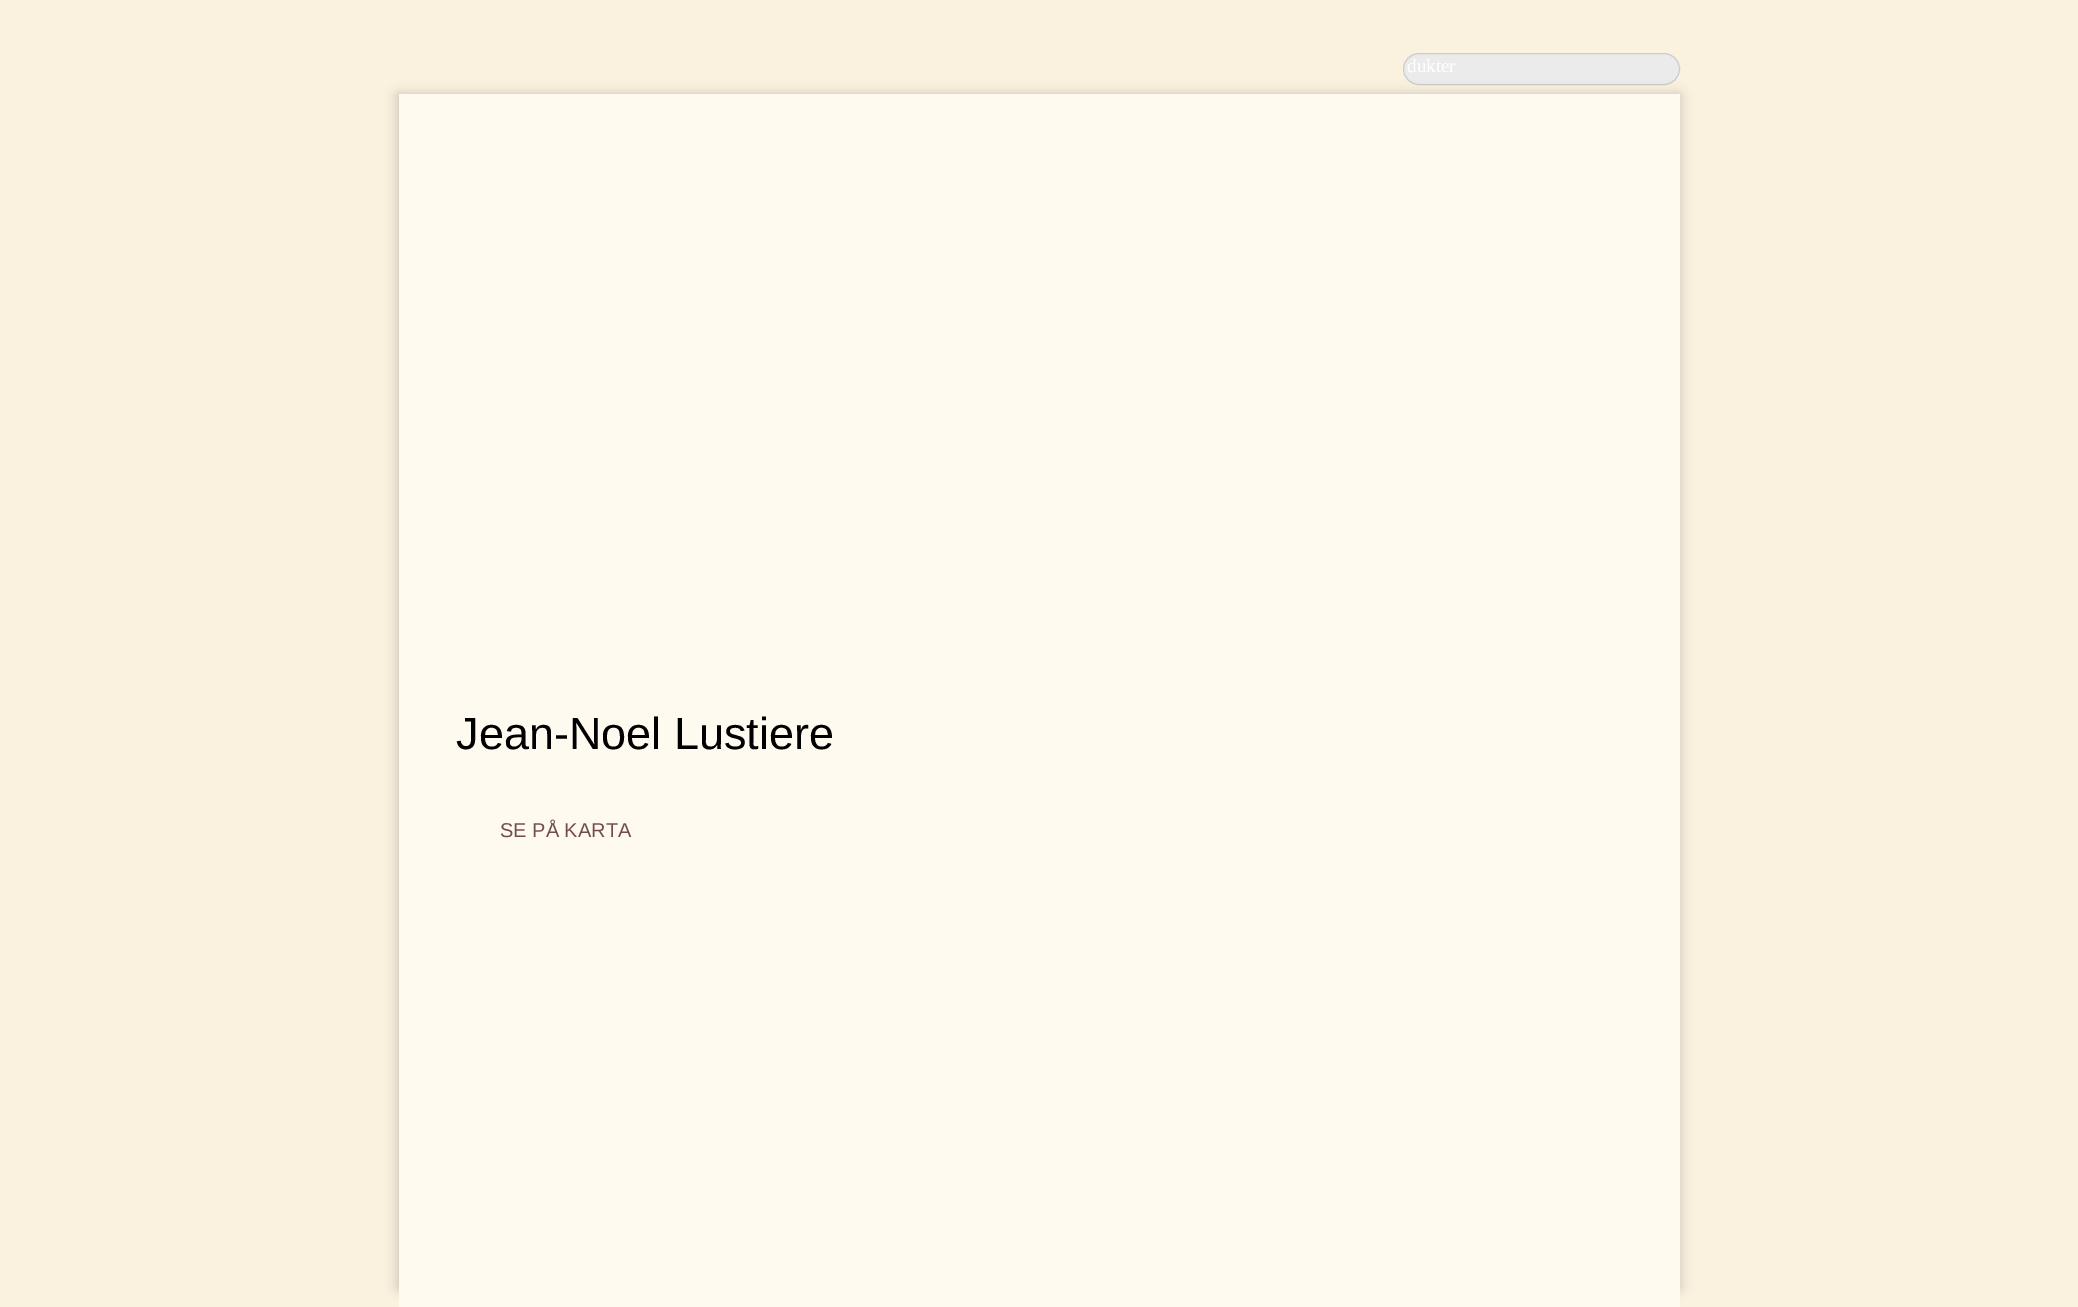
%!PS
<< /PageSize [2078 1307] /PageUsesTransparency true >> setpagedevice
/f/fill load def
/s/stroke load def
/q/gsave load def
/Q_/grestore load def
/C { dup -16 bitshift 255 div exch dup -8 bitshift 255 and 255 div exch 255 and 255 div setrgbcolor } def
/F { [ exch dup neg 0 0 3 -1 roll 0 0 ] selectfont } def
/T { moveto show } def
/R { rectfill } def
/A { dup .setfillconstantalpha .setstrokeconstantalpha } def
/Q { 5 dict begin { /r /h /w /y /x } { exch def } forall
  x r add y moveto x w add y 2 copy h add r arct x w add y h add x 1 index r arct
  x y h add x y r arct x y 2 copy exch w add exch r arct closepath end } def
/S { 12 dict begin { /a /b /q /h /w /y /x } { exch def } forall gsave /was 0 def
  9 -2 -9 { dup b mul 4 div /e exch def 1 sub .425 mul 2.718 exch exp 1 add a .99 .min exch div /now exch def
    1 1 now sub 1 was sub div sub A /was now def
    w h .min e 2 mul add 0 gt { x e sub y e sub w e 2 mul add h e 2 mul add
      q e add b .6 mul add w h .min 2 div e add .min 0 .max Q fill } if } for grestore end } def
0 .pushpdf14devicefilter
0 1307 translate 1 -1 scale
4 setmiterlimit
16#FAF1DF C
0 0 2078 1307 R
16#EBEBEB C
1403.5 53.5 276 31 15.5 Q q f Q_
16#CCCCCC C
s
/LiberationSerif-Regular 19 F
16#FFFFFF C
(dukter) 1407 72 T
16#000000 C
396 94 1282 1194 0 6 .1 S
400 95 1281 1194 0 6 .1 S
16#FFFAF0 C
399 94 1281 1213 R
/LiberationSans-Regular 45 F
16#000000 C
(Jean-Noel Lustiere) 456 749 T
/LiberationSans-Regular 20 F
16#734C4C C
(SE PÅ KARTA) 500 837 T
.poppdf14devicefilter showpage
